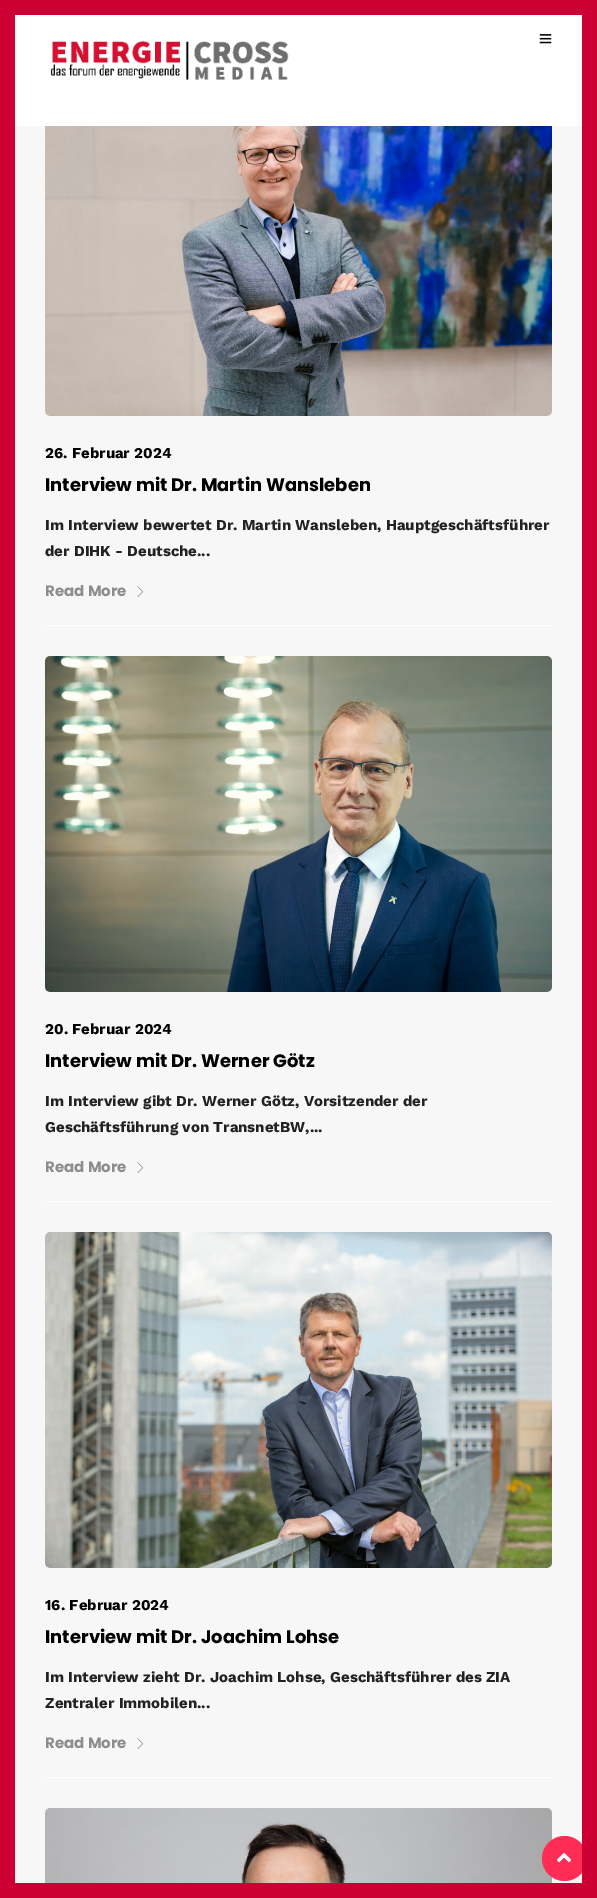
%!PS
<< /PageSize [597 1898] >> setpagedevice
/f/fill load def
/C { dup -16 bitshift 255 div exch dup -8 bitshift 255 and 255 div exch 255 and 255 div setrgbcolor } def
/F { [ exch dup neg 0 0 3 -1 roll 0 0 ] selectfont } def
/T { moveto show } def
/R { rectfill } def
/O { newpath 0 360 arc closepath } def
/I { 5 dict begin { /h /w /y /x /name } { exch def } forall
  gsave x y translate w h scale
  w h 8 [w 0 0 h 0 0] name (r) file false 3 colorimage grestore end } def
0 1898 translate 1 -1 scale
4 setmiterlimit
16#F7F7F7 C
0 0 597 1898 R
16#CC0033 C
0 0 15 1898 R
15 0 567 15 R
(7.rgb) 45 1808 507 75 I
16#FF2D55 C
564.5 1858.5 22.5 O f
16#CC0033 C
582 0 15 1898 R
16#FFFFFF C
15 15 567 111 R
(1.rgb) 539 34 13 10 I
(2.rgb) 50 40 239 40 I
(3.rgb) 45 126 507 290 I
/WorkSans-Bold 15 F
16#000000 C
(26. Februar 2024) 45 458 T
/Poppins-Bold 18 F
(Interview mit Dr. Martin Wansleben) 45 491 T
/WorkSans-Bold 15 F
16#222222 C
(Im Interview bewertet Dr. Martin Wansleben, Hauptgeschäftsführer) 45 530 T
(der DIHK - Deutsche...) 45 556 T
/Poppins-Bold 15 F
16#8D8D8D C
(Read More) 45 596 T
(4.rgb) 137 586 7 12 I
16#FFFFFF C
45 625 507 1 R
(5.rgb) 45 656 507 336 I
/WorkSans-Bold 15 F
16#000000 C
(20. Februar 2024) 45 1034 T
/Poppins-Bold 18 F
(Interview mit Dr. Werner Götz) 45 1067 T
/WorkSans-Bold 15 F
16#222222 C
(Im Interview gibt Dr. Werner Götz, Vorsitzender der) 45 1106 T
(Geschäftsführung von TransnetBW,...) 45 1132 T
/Poppins-Bold 15 F
16#8D8D8D C
(Read More) 45 1172 T
(4.rgb) 137 1162 7 12 I
16#FFFFFF C
45 1201 507 1 R
(6.rgb) 45 1232 507 336 I
/WorkSans-Bold 15 F
16#000000 C
(16. Februar 2024) 45 1610 T
/Poppins-Bold 18 F
(Interview mit Dr. Joachim Lohse) 45 1643 T
/WorkSans-Bold 15 F
16#222222 C
(Im Interview zieht Dr. Joachim Lohse, Geschäftsführer des ZIA) 45 1682 T
(Zentraler Immobilen...) 45 1708 T
/Poppins-Bold 15 F
16#8D8D8D C
(Read More) 45 1748 T
(4.rgb) 137 1738 7 12 I
16#FFFFFF C
45 1777 507 1 R
(8.rgb) 557 1853 14 10 I
16#CC0033 C
15 1883 567 15 R
showpage
